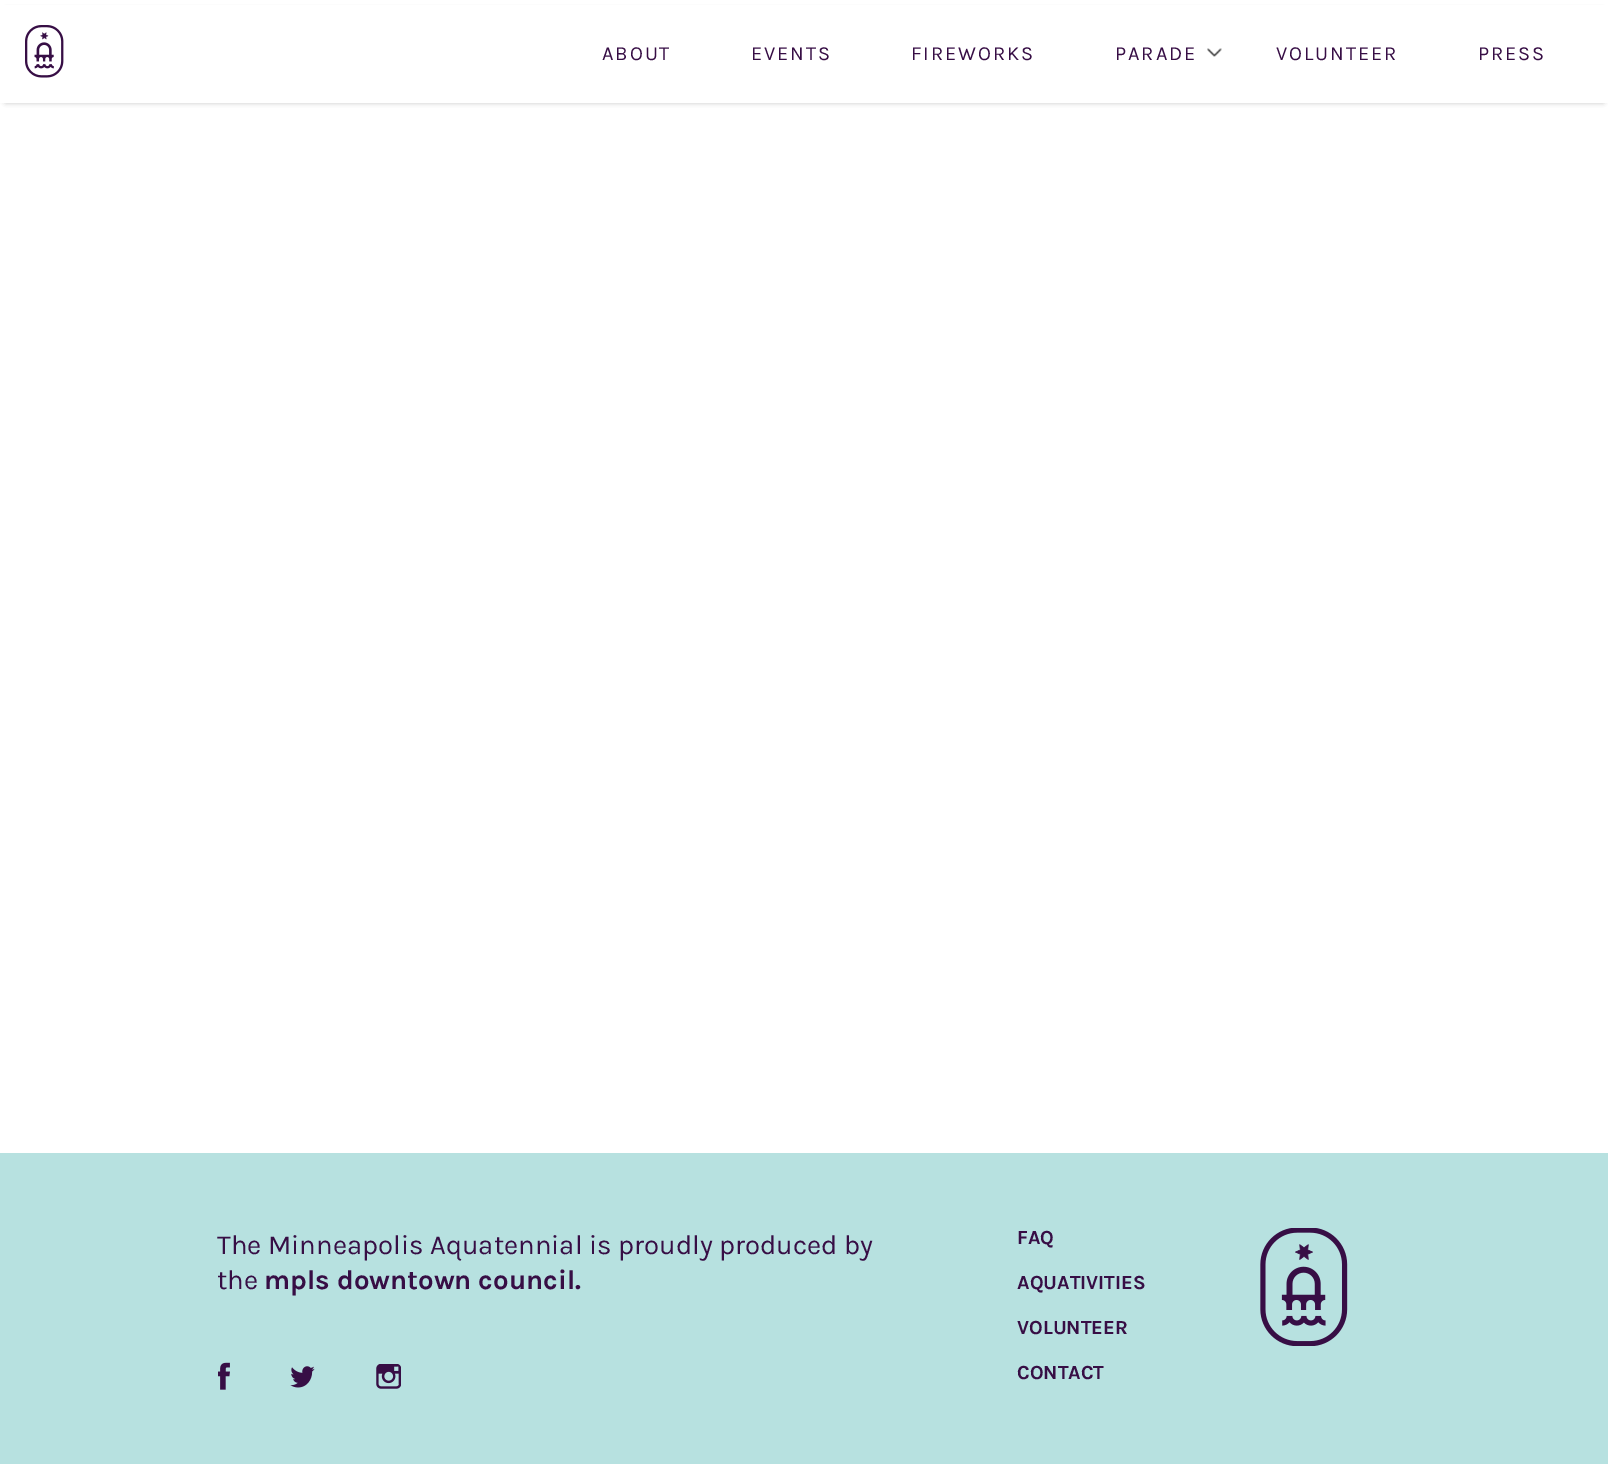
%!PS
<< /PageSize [1608 1464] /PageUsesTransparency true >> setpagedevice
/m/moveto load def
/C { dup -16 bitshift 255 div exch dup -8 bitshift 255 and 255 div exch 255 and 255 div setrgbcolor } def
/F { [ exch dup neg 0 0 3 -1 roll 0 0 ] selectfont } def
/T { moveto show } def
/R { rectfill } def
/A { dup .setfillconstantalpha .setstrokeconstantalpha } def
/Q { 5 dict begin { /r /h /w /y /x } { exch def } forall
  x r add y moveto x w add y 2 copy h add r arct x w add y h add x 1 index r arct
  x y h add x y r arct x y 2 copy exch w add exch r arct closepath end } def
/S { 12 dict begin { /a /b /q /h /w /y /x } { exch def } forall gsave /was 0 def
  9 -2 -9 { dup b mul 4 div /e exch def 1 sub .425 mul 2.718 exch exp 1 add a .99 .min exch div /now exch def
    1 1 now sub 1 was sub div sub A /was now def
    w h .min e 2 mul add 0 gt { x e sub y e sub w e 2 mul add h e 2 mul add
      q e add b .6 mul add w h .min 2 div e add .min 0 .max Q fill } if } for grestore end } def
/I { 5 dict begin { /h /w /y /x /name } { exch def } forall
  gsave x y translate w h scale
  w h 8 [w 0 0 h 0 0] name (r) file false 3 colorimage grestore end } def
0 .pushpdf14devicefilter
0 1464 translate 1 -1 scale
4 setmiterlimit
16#FFFFFF C
0 0 1608 1464 R
16#808080 C
6 11 1597 90 0 3 1 S
16#FFFFFF C
0 5 1608 98 R
(1.rgb) 25 25 39 53 I
/Karla-Regular 20 F
16#370E45 C
602 60 m 1.9 0 (ABOUT) ashow
751 60 m 1.9 0 (EVENTS) ashow
911 60 m 1.9 0 (FIREWORKS) ashow
1115 60 m 1.9 0 (PARADE) ashow
(2.rgb) 1207 48 15 9 I
1276 60 m 1.9 0 (VOLUNTEER) ashow
1478 60 m 1.9 0 (PRESS) ashow
16#B7E1E0 C
0 1153 1608 311 R
/Karla-Regular 27.5 F
16#370E45 C
(The Minneapolis Aquatennial is proudly produced by) 217 1254 T
(the) 217 1289 T
/Karla-Bold 27.5 F
(mpls downtown council.) 264 1289 T
(3.rgb) 218 1362 12 28 I
(4.rgb) 290 1366 25 22 I
(5.rgb) 376 1364 25 25 I
/Karla-Bold 20 F
(FAQ) 1017 1244 T
(AQUATIVITIES) 1017 1289 T
(VOLUNTEER) 1017 1334 T
(CONTACT) 1017 1379 T
(6.rgb) 1260 1228 88 118 I
.poppdf14devicefilter showpage
